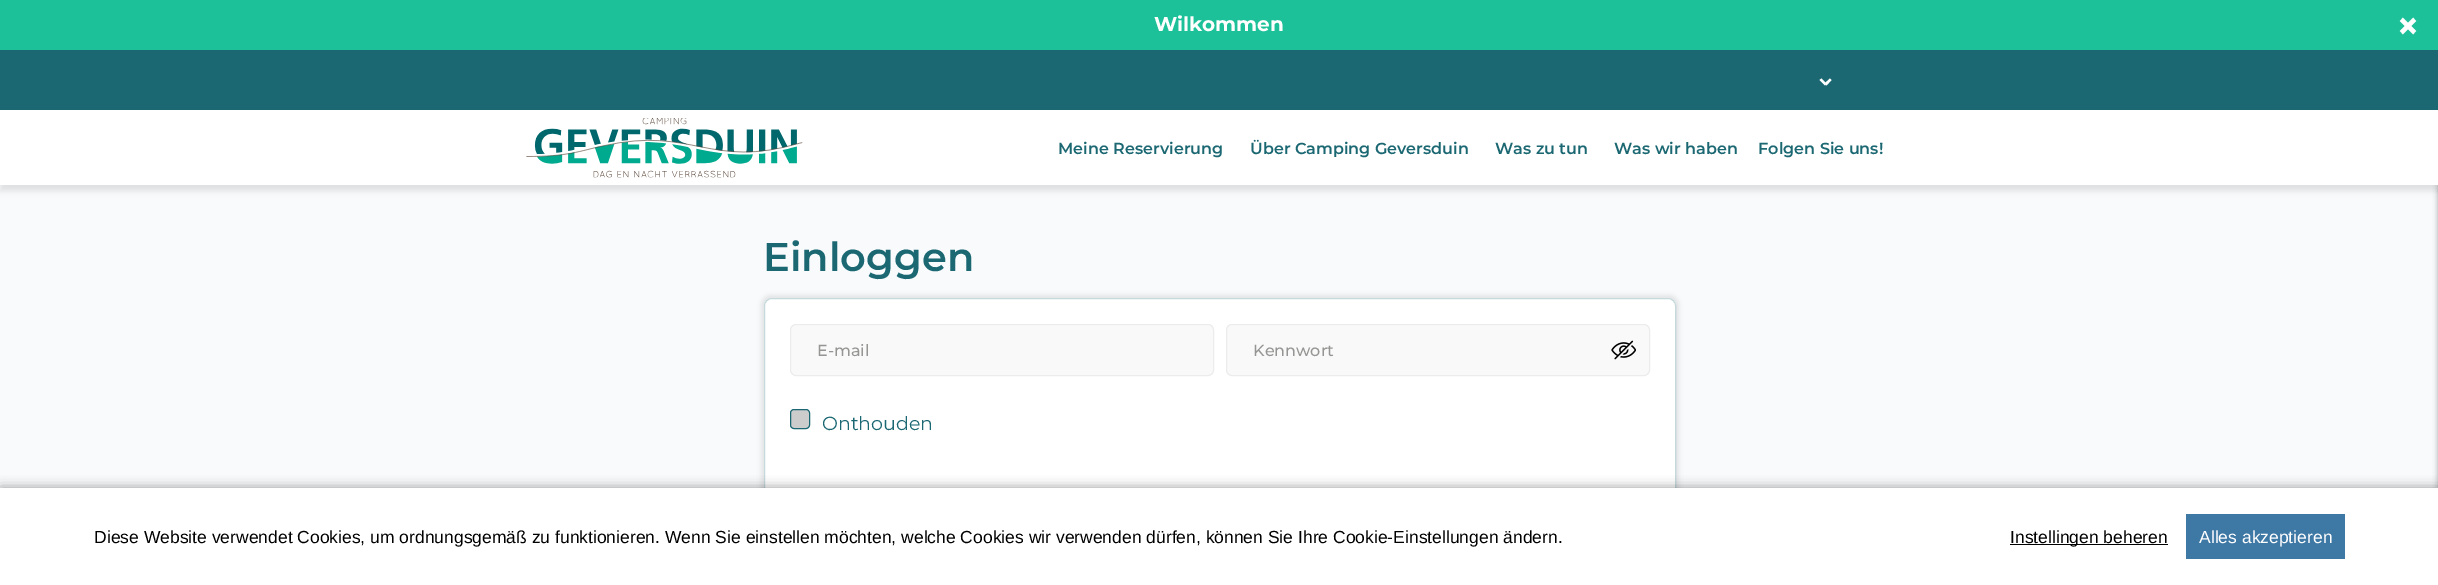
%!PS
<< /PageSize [2438 585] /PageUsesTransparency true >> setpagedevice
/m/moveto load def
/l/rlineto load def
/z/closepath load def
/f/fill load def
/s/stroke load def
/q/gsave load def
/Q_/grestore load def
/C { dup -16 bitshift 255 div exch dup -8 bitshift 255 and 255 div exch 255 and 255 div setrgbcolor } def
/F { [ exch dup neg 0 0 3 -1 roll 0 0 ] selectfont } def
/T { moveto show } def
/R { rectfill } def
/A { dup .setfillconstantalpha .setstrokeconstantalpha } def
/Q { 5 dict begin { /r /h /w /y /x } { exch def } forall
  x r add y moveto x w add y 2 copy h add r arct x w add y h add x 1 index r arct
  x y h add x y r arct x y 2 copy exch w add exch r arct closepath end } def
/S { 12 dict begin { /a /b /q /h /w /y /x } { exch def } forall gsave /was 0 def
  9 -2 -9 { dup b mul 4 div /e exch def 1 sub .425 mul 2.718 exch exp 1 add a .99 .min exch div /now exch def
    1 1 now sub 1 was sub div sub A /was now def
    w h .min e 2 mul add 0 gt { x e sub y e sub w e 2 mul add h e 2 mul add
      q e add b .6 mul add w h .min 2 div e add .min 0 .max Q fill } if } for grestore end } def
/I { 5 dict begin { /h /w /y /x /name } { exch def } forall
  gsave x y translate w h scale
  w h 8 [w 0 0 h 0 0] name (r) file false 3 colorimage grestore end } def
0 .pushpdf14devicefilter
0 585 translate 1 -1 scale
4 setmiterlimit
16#F8FAFC C
0 0 2438 585 R
16#000000 C
0 56 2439 135 0 3 .1 S
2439 0 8 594 0 3 .5 S
16#FFFFFF C
0 110 2438 75 R
16#1DC199 C
0 0 2438 50 R
/Montserrat-Bold 20 F
16#FFFFFF C
(Wilkommen) 1154 31 T
/Montserrat-Bold 40 F
(×) 2396 40 T
16#1B6873 C
0 50 2438 60 R
16#FFFFFF C
1825 85.5 m -5.5 -5.5 l 2 -1.5 l 5 5 l z f
1831.5 80 m -5 5.5 l -2 -2 l 5.5 -5 l z f
(1.rgb) 526 118 277 60 I
/Montserrat-SemiBold 16 F
16#1B6873 C
(Meine Reservierung) 1058 154 T
(Über Camping Geversduin) 1250 154 T
(Was zu tun) 1495 154 T
(Was wir haben) 1614 154 T
(Folgen Sie uns!) 1758 154 T
/Montserrat-SemiBold 40 F
(Einloggen) 763 271 T
16#000000 C
761 295 918 279 10 2 .08 S
16#FFFFFF C
764 298 912 273 8 Q f
0.25 A
16#1B6873 C
764.5 298.5 911 272 7.5 Q s
1 A
16#F9F9F9 C
790.5 324.5 423 51 5.5 Q q f Q_
16#ECECEC C
s
/Montserrat-Medium 16 F
16#959594 C
(E-mail) 817 356 T
16#F9F9F9 C
1226.5 324.5 423 51 5.5 Q q f Q_
16#ECECEC C
s
16#959594 C
(Kennwort) 1253 356 T
(2.rgb) 1611 340 25 20 I
16#CCCCCC C
790.5 409.5 19 19 3.5 Q q f Q_
16#1B6873 C
s
/Montserrat-Regular 19 F
(Onthouden) 822 430 T
16#000000 C
1 489 2437 95 0 6 .5 S
16#FFFFFF C
0 488 2438 97 R
/LiberationSans-Regular 17.5 F
16#000000 C
(Diese Website verwendet Cookies, um ordnungsgemäß zu funktionieren. Wenn Sie einstellen möchten, welche Cookies wir verwenden dürfen, können Sie Ihre Cookie-Einstellungen ändern.) 94 543 T
2010 544 158 1 R
(Instellingen beheren) 2010 543 T
16#3E78A5 C
2186 514 159 45 R
16#FFFFFF C
(Alles akzeptieren) 2199 543 T
.poppdf14devicefilter showpage
